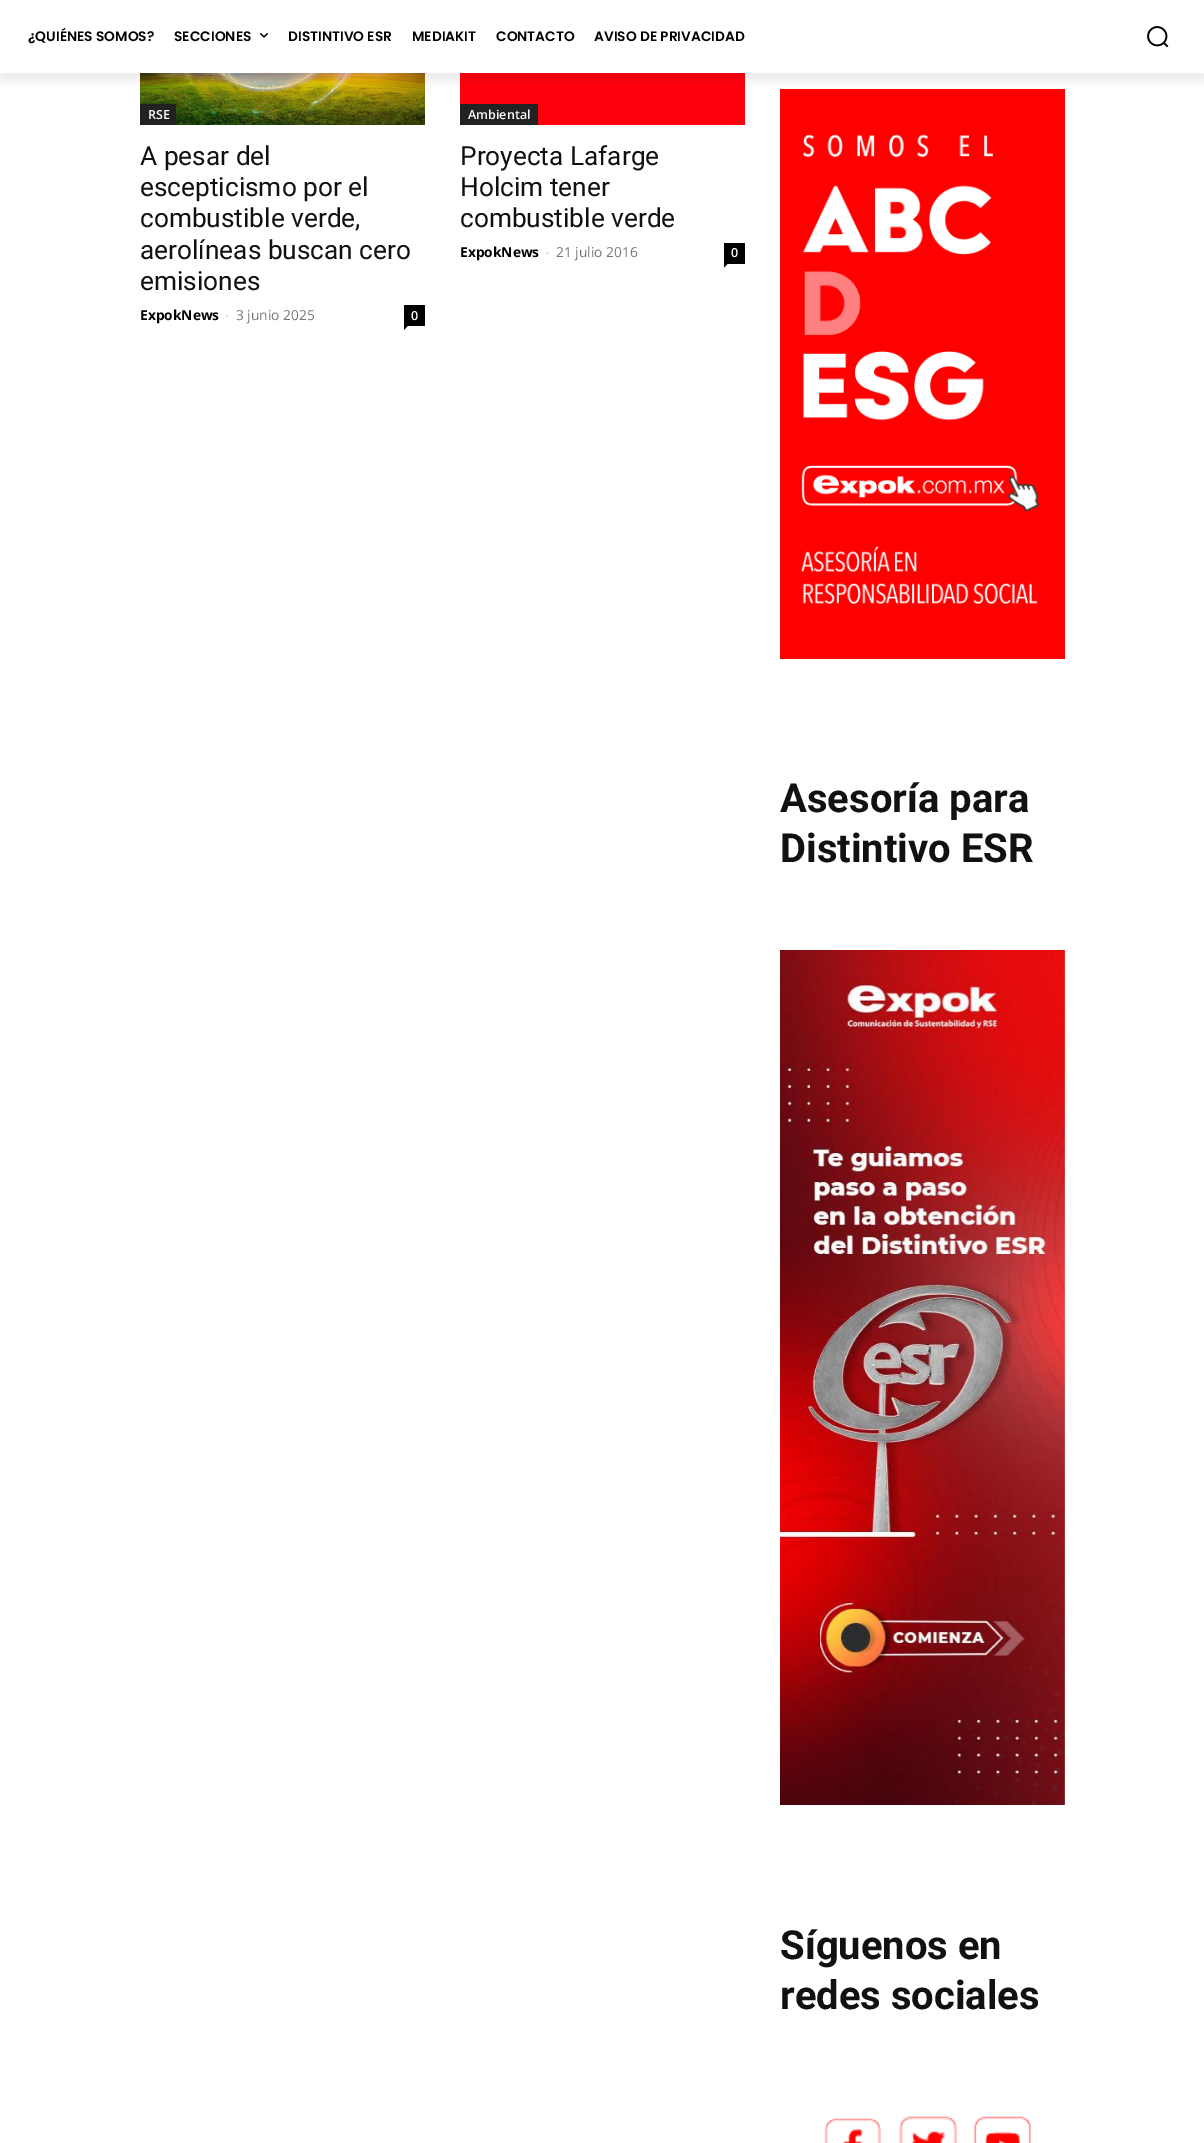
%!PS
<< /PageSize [1204 2143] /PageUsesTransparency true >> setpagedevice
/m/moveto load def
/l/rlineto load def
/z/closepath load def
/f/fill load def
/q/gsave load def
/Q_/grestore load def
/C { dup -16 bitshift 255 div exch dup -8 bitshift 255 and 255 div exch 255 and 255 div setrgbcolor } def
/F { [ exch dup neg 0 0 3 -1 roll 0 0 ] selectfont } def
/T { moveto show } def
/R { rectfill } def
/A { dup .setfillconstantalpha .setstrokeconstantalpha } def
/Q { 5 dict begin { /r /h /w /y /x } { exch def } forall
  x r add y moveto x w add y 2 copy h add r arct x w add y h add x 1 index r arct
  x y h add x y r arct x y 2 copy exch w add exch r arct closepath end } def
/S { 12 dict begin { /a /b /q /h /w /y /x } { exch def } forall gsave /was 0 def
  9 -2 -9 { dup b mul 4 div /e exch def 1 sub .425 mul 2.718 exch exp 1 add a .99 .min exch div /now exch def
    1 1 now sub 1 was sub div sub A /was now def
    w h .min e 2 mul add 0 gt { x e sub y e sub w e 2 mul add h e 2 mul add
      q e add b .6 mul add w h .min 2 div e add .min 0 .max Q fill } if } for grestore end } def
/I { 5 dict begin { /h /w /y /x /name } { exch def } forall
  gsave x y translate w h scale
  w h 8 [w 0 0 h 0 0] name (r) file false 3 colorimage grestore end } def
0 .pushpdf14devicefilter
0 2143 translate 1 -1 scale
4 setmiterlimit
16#FFFFFF C
0 0 1204 2143 R
(3.rgb) 140 73 285 52 I
(4.rgb) 460 73 285 52 I
(5.rgb) 780 89 285 570 I
q
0 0 m 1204 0 l 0 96 l -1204 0 l z 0 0 m 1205 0 l 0 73 l -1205 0 l z eoclip newpath
16#000000 C
0 8 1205 72 0 5 .08 S
Q_
/Poppins-SemiBold 13.75 F
16#000000 C
(¿QUIÉNES SOMOS?) 28 41 T
(SECCIONES) 174 41 T
(1.rgb) 260 33 8 5 I
(DISTINTIVO ESR) 288 41 T
(MEDIAKIT) 412 41 T
(CONTACTO) 496 41 T
(AVISO DE PRIVACIDAD) 594 41 T
(2.rgb) 1147 26 22 22 I
16#222222 C
140 104 36 21 R
/OpenSans-SemiBold 12.5 F
16#FFFFFF C
(RSE) 148 119 T
/Roboto-Regular 26.25 F
16#111111 C
(A pesar del) 140 165 T
(escepticismo por el) 140 196 T
(combustible verde,) 140 227 T
(aerolíneas buscan cero) 140 259 T
(emisiones) 140 290 T
/OpenSans-Bold 13.75 F
16#000000 C
(ExpokNews) 140 320 T
/OpenSans-Regular 13.75 F
16#CCCCCC C
(-) 225 320 T
16#767676 C
(3 junio 2025) 236 320 T
16#000000 C
404 305 21 21 R
/OpenSans-SemiBold 12.5 F
16#FFFFFF C
(0) 411 320 T
16#000000 C
404 326 m 3.5 0 l -3.5 4 l z f
16#222222 C
460 104 78 21 R
16#FFFFFF C
(Ambiental) 468 119 T
/Roboto-Regular 26.25 F
16#111111 C
(Proyecta Lafarge) 460 165 T
(Holcim tener) 460 196 T
(combustible verde) 460 227 T
/OpenSans-Bold 13.75 F
16#000000 C
(ExpokNews) 460 257 T
/OpenSans-Regular 13.75 F
16#CCCCCC C
(-) 545 257 T
16#767676 C
(21 julio 2016) 556 257 T
16#000000 C
724 243 21 21 R
/OpenSans-SemiBold 12.5 F
16#FFFFFF C
(0) 731 257 T
16#000000 C
724 264 m 3.5 0 l -3.5 3.5 l z f
/Roboto-Bold 40 F
16#111111 C
(Asesoría para) 780 812 T
(Distintivo ESR) 780 862 T
(6.rgb) 780 950 285 855 I
(Síguenos en) 780 1959 T
(redes sociales) 780 2009 T
(7.rgb) 824 2118 57 25 I
(8.rgb) 899 2116 59 27 I
(9.rgb) 974 2116 57 27 I
.poppdf14devicefilter showpage
